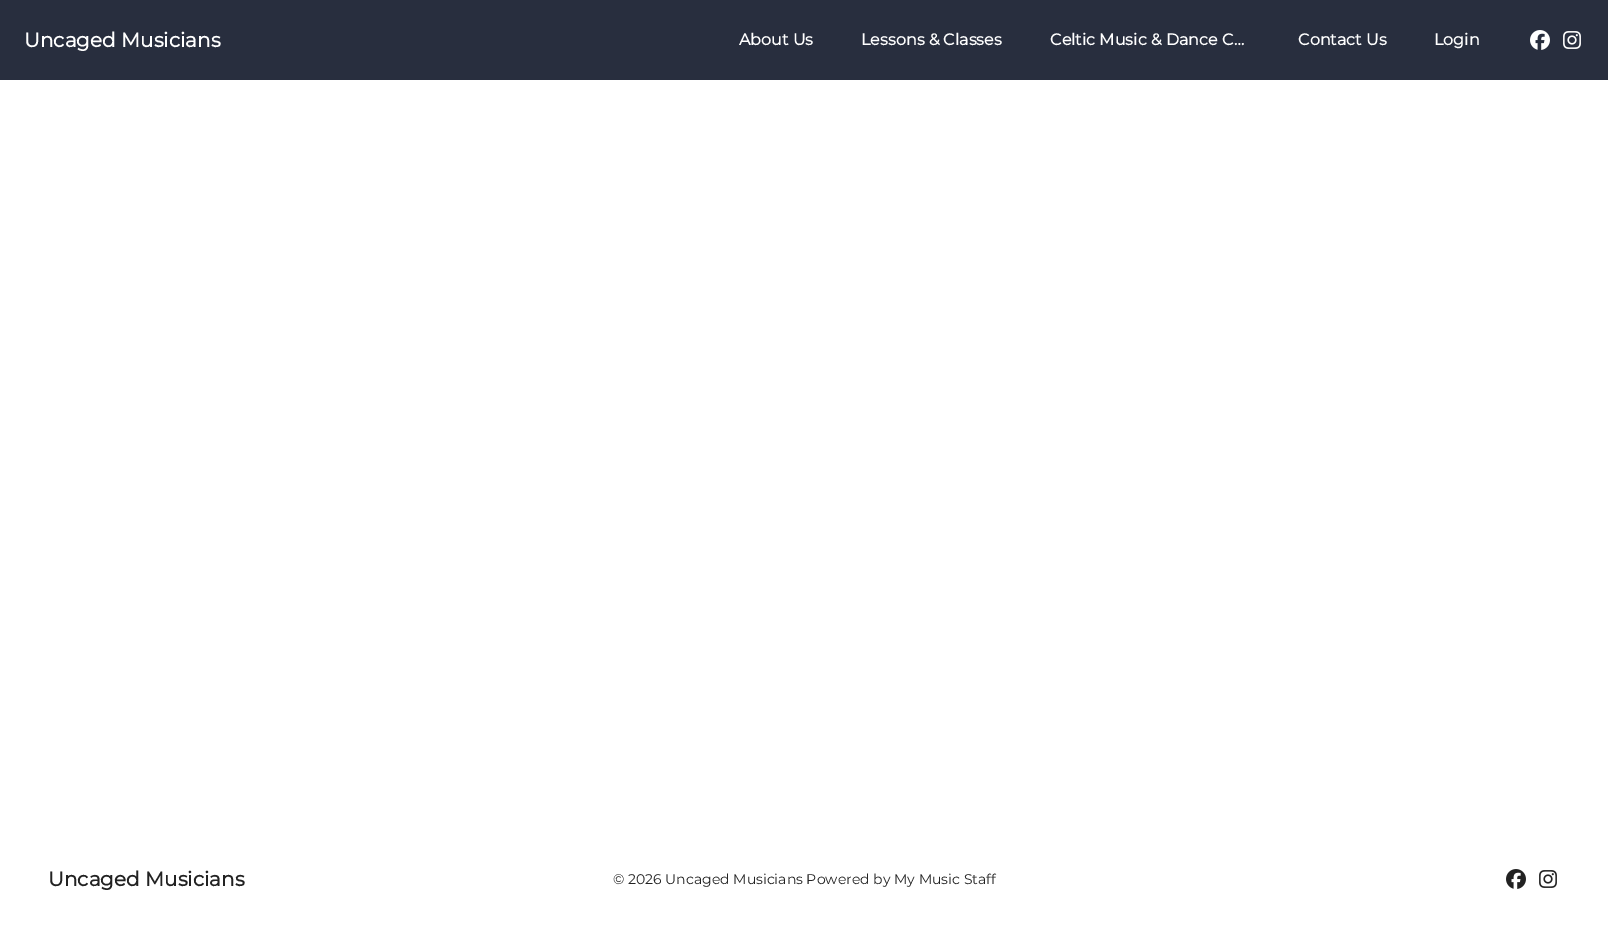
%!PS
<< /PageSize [1608 929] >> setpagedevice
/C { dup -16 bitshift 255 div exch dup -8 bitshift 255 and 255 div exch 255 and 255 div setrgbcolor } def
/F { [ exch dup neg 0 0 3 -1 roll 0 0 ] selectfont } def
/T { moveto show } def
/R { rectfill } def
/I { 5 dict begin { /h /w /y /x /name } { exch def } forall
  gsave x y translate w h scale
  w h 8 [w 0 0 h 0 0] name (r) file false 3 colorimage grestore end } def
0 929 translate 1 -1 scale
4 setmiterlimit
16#FFFFFF C
0 0 1608 929 R
16#282E3E C
0 0 1608 80 R
/Montserrat-Bold 20 F
16#FFFFFF C
(Uncaged Musicians) 24 47 T
/Montserrat-Bold 16 F
(About Us) 739 45 T
(Lessons & Classes) 861 45 T
(Celtic Music & Dance C…) 1050 45 T
(Contact Us) 1298 45 T
(Login) 1434 45 T
(1.rgb) 1530 30 20 20 I
(2.rgb) 1563 31 18 18 I
/Montserrat-Bold 20 F
16#222222 C
(Uncaged Musicians) 48 886 T
/Montserrat-Thin 14 F
(© 2026 Uncaged Musicians Powered by My Music Staff) 613 884 T
(3.rgb) 1506 869 20 20 I
(4.rgb) 1539 870 18 18 I
showpage
